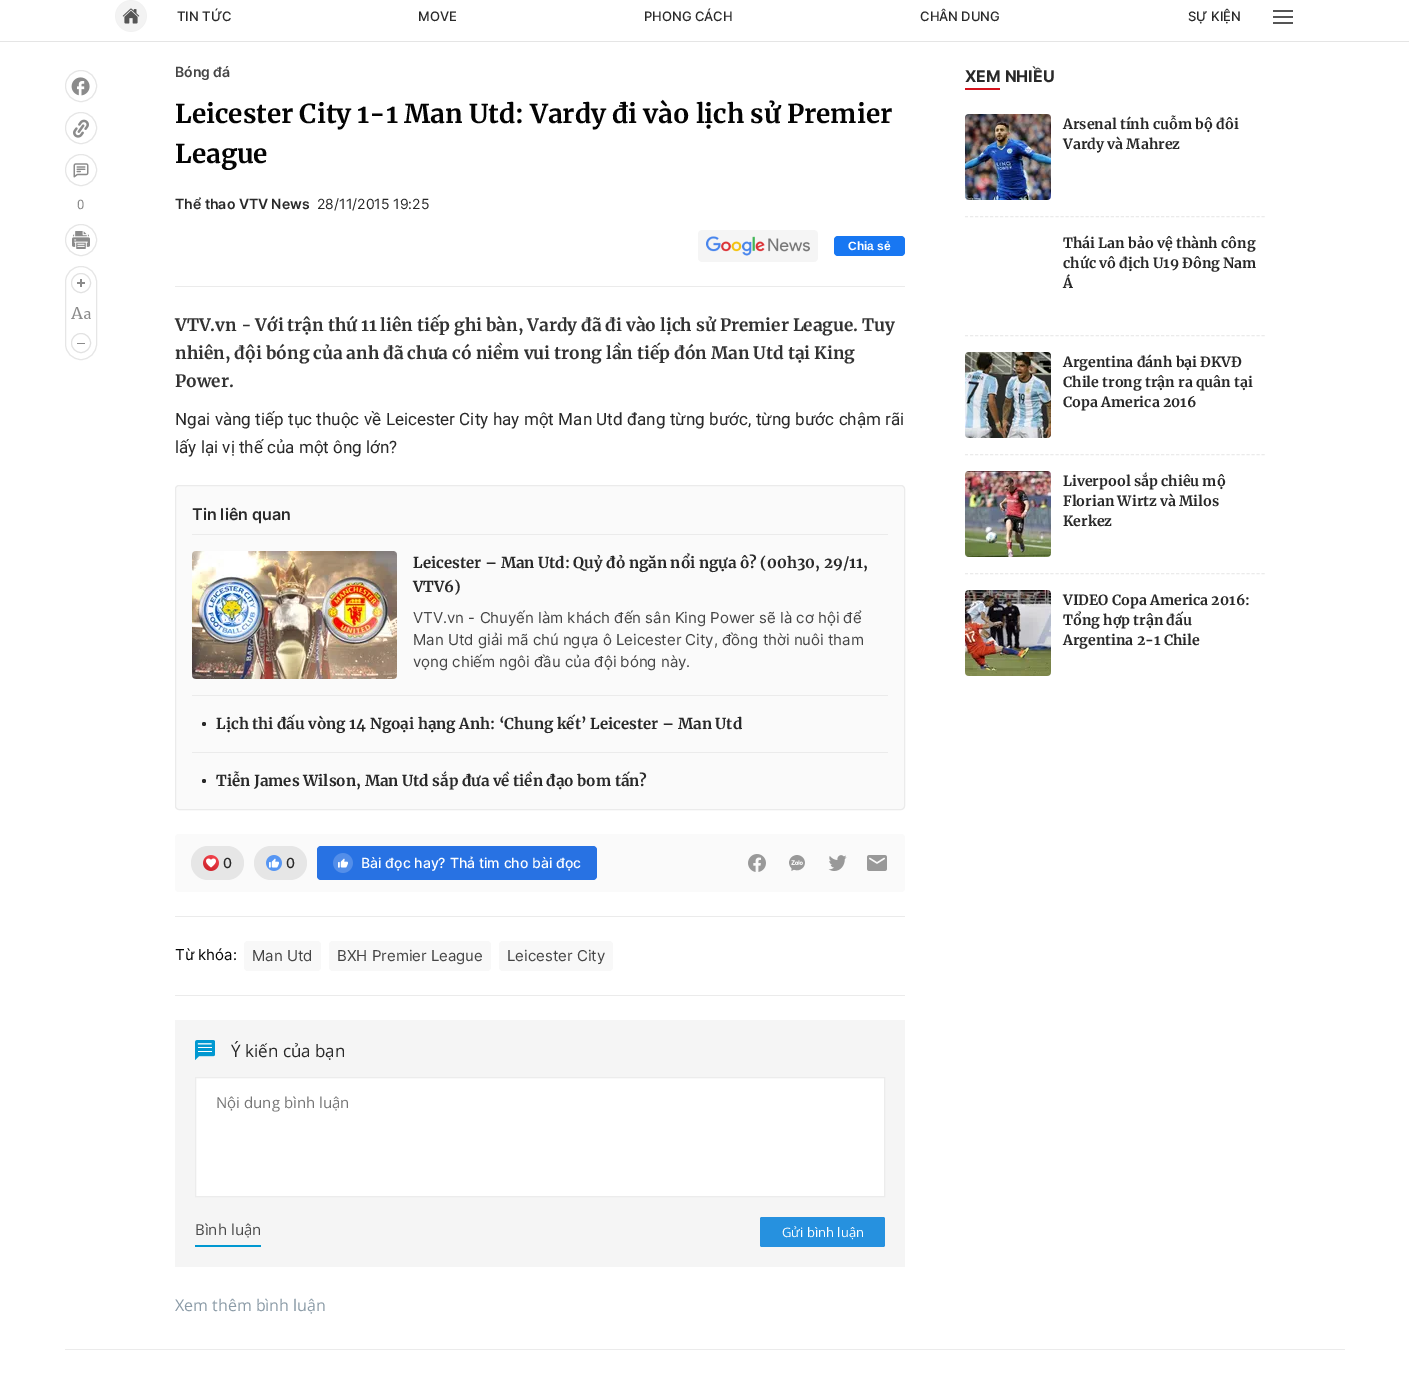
%!PS
<< /PageSize [1409 1380] >> setpagedevice
/m/moveto load def
/l/rlineto load def
/z/closepath load def
/f/fill load def
/s/stroke load def
/q/gsave load def
/Q_/grestore load def
/C { dup -16 bitshift 255 div exch dup -8 bitshift 255 and 255 div exch 255 and 255 div setrgbcolor } def
/F { [ exch dup neg 0 0 3 -1 roll 0 0 ] selectfont } def
/T { moveto show } def
/R { rectfill } def
/O { newpath 0 360 arc closepath } def
/Q { 5 dict begin { /r /h /w /y /x } { exch def } forall
  x r add y moveto x w add y 2 copy h add r arct x w add y h add x 1 index r arct
  x y h add x y r arct x y 2 copy exch w add exch r arct closepath end } def
/I { 5 dict begin { /h /w /y /x /name } { exch def } forall
  gsave x y translate w h scale
  w h 8 [w 0 0 h 0 0] name (r) file false 3 colorimage grestore end } def
0 1380 translate 1 -1 scale
4 setmiterlimit
16#FFFFFF C
0 0 1409 1380 R
16#E5E5E5 C
0 41 1409 1 R
(1.rgb) 115 0 32 32 I
/Inter-Medium 13 F
16#292929 C
(TIN TỨC) 177 21 T
(MOVE) 418 21 T
(PHONG CÁCH) 644 21 T
(CHÂN DUNG) 920 21 T
(SỰ KIỆN) 1188 21 T
16#555555 C
1273 10 20 2 R
1273 16 20 2 R
1273 22 20 2 R
16#E6E6E6 C
81 86 15.5 O s
(2.rgb) 71 77 19 19 I
81 128 15.5 O s
(3.rgb) 73 119 16 19 I
81 170 15.5 O s
(4.rgb) 73 163 16 15 I
/Roboto-Regular 13 F
16#8B8B8B C
(0) 77 209 T
16#E6E6E6 C
81 240 15.5 O s
(5.rgb) 72 231 18 18 I
65.5 266.5 31 93 15.5 Q s
16#E2E2E2 C
81 283 9.5 O s
16#8B8B8B C
77 282 8 2 R
80 279 2 8 R
(6.rgb) 71 307 20 12 I
16#E2E2E2 C
81 343 9.5 O s
16#8B8B8B C
77 343 8 1 R
/Inter-SemiBold 14 F
16#454545 C
(Bóng đá) 175 77 T
/Merriweather-Bold 26 F
16#040404 C
(Leicester City 1-1 Man Utd: Vardy đi vào lịch sử Premier) 175 123 T
(League) 175 163 T
/Inter-SemiBold 14 F
16#292929 C
(Thể thao VTV News) 175 209 T
/Inter-Regular 14 F
(28/11/2015 19:25) 317 209 T
16#EBEBEB C
175 286 730 1 R
(7.rgb) 698 230 120 32 I
16#1877F2 C
834 236 71 20 4 Q f
/LiberationSans-Bold 12 F
16#FFFFFF C
(Chia sẻ) 848 250 T
/Merriweather-Bold 17 F
16#333333 C
(VTV.vn - Với trận thứ 11 liên tiếp ghi bàn, Vardy đã đi vào lịch sử Premier League. Tuy) 175 331 T
(nhiên, đội bóng của anh đã chưa có niềm vui trong lần tiếp đón Man Utd tại King) 175 359 T
(Power.) 175 387 T
/Roboto-Regular 17 F
16#292929 C
175 425 m .3 0 32 (Ngai vàng tiếp tục thuộc về Leicester City hay một Man Utd đang từng bước, từng bước chậm rãi) widthshow
(lấy lại vị thế của một ông lớn?) 175 453 T
16#FAFAFA C
175.5 485.5 729 324 3.5 Q q f Q_
16#EBEBEB C
s
192 534 696 1 R
/Inter-SemiBold 16 F
16#292929 C
(Tin liên quan) 192 520 T
(8.rgb) 192 551 205 128 I
/Merriweather-Bold 15 F
(Leicester – Man Utd: Quỷ đỏ ngăn nổi ngựa ô? \(00h30, 29/11,) 413 568 T
(VTV6\)) 413 592 T
/Inter-Regular 15 F
16#454545 C
(VTV.vn - Chuyến làm khách đến sân King Power sẽ là cơ hội để) 413 623 T
(Man Utd giải mã chú ngựa ô Leicester City, đồng thời nuôi tham) 413 645 T
(vọng chiếm ngôi đầu của đội bóng này.) 413 667 T
16#EBEBEB C
192 695 696 1 R
16#292929 C
204 724 2 O f
/Merriweather-Bold 15 F
(Lịch thi đấu vòng 14 Ngoại hạng Anh: ‘Chung kết’ Leicester – Man Utd) 216 729 T
16#EBEBEB C
192 752 696 1 R
16#292929 C
204 781 2 O f
(Tiễn James Wilson, Man Utd sắp đưa về tiền đạo bom tấn?) 216 786 T
16#FAFAFA C
175 834 730 58 4 Q f
16#E6E6E6 C
191 846 53 34 17 Q f
(9.rgb) 203 855 16 16 I
/Inter-Medium 14 F
16#292929 C
(0) 223 868 T
16#E6E6E6 C
254 846 53 34 17 Q f
(10.rgb) 266 855 16 16 I
16#292929 C
(0) 286 868 T
16#2872E3 C
317 846 280 34 4 Q f
(11.rgb) 333 853 20 20 I
16#FFFFFF C
(Bài đọc hay? Thả tim cho bài đọc) 361 868 T
(12.rgb) 748 854 18 18 I
(13.rgb) 789 855 16 16 I
(14.rgb) 828 855 19 16 I
(15.rgb) 867 855 20 16 I
16#EBEBEB C
175 916 730 1 R
175 995 730 1 R
/Inter-Regular 15 F
16#040404 C
(Từ khóa:) 175 960 T
16#F8F8F8 C
244 941 77 30 4 Q f
16#454545 C
(Man Utd) 252 961 T
16#F8F8F8 C
329 941 162 30 4 Q f
16#454545 C
(BXH Premier League) 337 961 T
16#F8F8F8 C
499 941 114 30 4 Q f
16#454545 C
(Leicester City) 507 961 T
16#F5F5F5 C
175 1020 730 247 R
(16.rgb) 195 1040 20 20 I
/OpenSans-Regular 17 F
16#292929 C
(Ý kiến của bạn) 231 1057 T
16#FFFFFF C
195.5 1077.5 m 689 0 l 0 119 l -689 0 l z q f Q_
16#ECECEC C
s
/OpenSans-Regular 15 F
16#757575 C
(Nội dung bình luận) 216 1108 T
16#2691DF C
760 1217 125 30 2 Q f
/OpenSans-Regular 13 F
16#FFFFFF C
(Gửi bình luận) 782 1237 T
16#0098D1 C
195 1245 66 2 R
/OpenSans-Regular 15 F
16#4B4B4B C
(Bình luận) 195 1235 T
/OpenSans-Regular 16 F
16#8B9BA7 C
(Xem thêm bình luận) 175 1311 T
/Inter-Bold 16 F
16#292929 C
(XEM NHIỀU) 965 82 T
16#D4111B C
965 88 35 2 R
(17.rgb) 965 114 86 86 I
/Merriweather-Bold 14 F
16#292929 C
(Arsenal tính cuỗm bộ đôi) 1063 129 T
(Vardy và Mahrez) 1063 149 T
16#EBEBEB C
[3 2.03] 0 setdash
965 216.5 m 300 0 l s
16#292929 C
(Thái Lan bảo vệ thành công) 1063 248 T
(chức vô địch U19 Đông Nam) 1063 268 T
(Á) 1063 288 T
16#EBEBEB C
965 335.5 m 300 0 l s
(18.rgb) 965 352 86 86 I
16#292929 C
(Argentina đánh bại ĐKVĐ) 1063 367 T
(Chile trong trận ra quân tại) 1063 387 T
(Copa America 2016) 1063 407 T
16#EBEBEB C
965 454.5 m 300 0 l s
(19.rgb) 965 471 86 86 I
16#292929 C
(Liverpool sắp chiêu mộ) 1063 486 T
(Florian Wirtz và Milos) 1063 506 T
(Kerkez) 1063 526 T
16#EBEBEB C
965 573.5 m 300 0 l s
(20.rgb) 965 590 86 86 I
16#292929 C
(VIDEO Copa America 2016:) 1063 605 T
(Tổng hợp trận đấu) 1063 625 T
(Argentina 2-1 Chile) 1063 645 T
16#EBEBEB C
65 1349 1280 1 R
showpage
